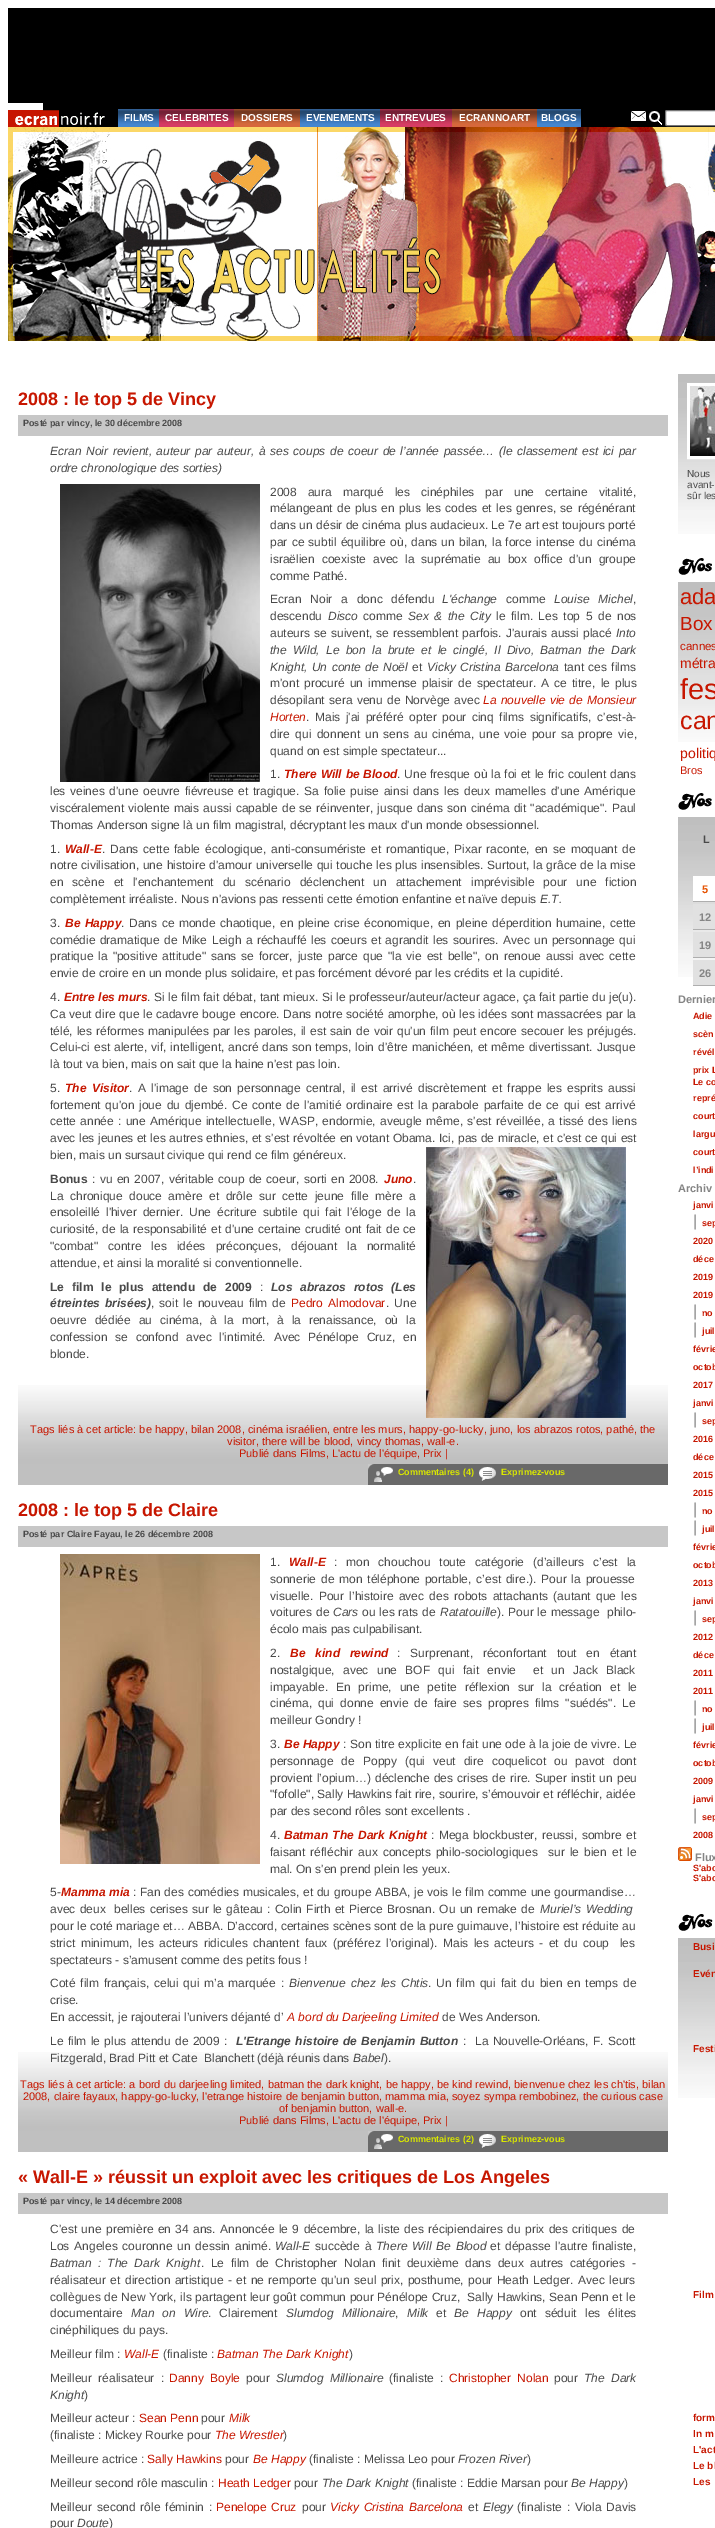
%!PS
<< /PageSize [715 2528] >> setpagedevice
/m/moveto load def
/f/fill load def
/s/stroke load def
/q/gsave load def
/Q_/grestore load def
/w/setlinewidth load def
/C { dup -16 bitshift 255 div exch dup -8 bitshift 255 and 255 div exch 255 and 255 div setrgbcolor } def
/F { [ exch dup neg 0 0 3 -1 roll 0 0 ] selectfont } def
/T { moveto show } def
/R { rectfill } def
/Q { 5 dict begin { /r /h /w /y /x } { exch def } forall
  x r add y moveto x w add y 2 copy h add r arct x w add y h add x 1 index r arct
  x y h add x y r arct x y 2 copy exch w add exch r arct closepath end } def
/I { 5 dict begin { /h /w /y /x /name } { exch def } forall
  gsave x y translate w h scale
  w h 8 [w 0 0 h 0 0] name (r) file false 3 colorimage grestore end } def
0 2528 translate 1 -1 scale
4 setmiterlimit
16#FFFFFF C
0 0 715 2528 R
16#000000 C
8 8 707 119 R
(1.rgb) 8 103 97 24 I
(2.rgb) 118 109 41 18 I
/LiberationSans-Bold 10 F
16#FFFFFF C
(FILMS) 124 121 T
(3.rgb) 159 109 75 18 I
(CELEBRITES) 165 121 T
(4.rgb) 234 109 66 18 I
(DOSSIERS) 241 121 T
(5.rgb) 300 109 80 18 I
(EVENEMENTS) 306 121 T
(6.rgb) 380 109 72 18 I
(ENTREVUES) 385 121 T
(7.rgb) 452 109 85 18 I
(ECRANNOART) 459 121 T
(8.rgb) 537 109 44 18 I
(BLOGS) 541 121 T
(9.rgb) 631 111 15 10 I
(10.rgb) 649 111 13 14 I
665.5 110.5 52 15 1.5 Q q f Q_
16#767676 C
s
(11.rgb) 8 127 707 214 I
(12.rgb) 18 1385 650 79 I
/LiberationSans-Bold 18 F
16#C71600 C
(2008 : le top 5 de Vincy) 18 405 T
16#C7C7C7 C
18 415 650 21 R
/LiberationSans-Bold 9 F
16#494949 C
(Posté par vincy, le 30 décembre 2008) 23 426 T
/LiberationSans-Italic 12 F
50 455 m 1.25 0 32 (Ecran Noir revient, auteur par auteur, à ses coups de coeur de l’année passée… \(le classement est ici par) widthshow
(ordre chronologique des sorties\)) 50 472 T
(13.rgb) 60 484 200 298 I
/LiberationSans-Regular 12 F
270 496 m 7.75 0 32 (2008 aura marqué les cinéphiles par une certaine vitalité,) widthshow
270 512 m 1.1 0 32 (mélangeant de plus en plus les codes et les genres, se régénérant) widthshow
270 529 m .1 0 32 (dans un désir de cinéma plus audacieux. Le 7e art est toujours porté) widthshow
270 546 m .9 0 32 (par ce subtil équilibre où, dans un bilan, la force intense du cinéma) widthshow
270 563 m 3.5 0 32 (israëlien coexiste) widthshow
373 563 m 3.5 0 32 (avec la suprématie au box office d'un groupe) widthshow
(comme Pathé.) 270 580 T
270 603 m 5.5 0 32 (Ecran Noir a donc défendu) widthshow
/LiberationSans-Italic 12 F
(L'échange) 442 603 T
/LiberationSans-Regular 12 F
(comme) 506 603 T
/LiberationSans-Italic 12 F
554 603 m 5.5 0 32 (Louise Michel) widthshow
/LiberationSans-Regular 12 F
(,) 633 603 T
(descendu) 270 620 T
/LiberationSans-Italic 12 F
(Disco) 328 620 T
/LiberationSans-Regular 12 F
(comme) 363 620 T
/LiberationSans-Italic 12 F
408 620 m 2.25 0 32 (Sex & the City) widthshow
/LiberationSans-Regular 12 F
496 620 m 2.25 0 32 (le film. Les top 5 de nos) widthshow
270 637 m .75 0 32 (auteurs se suivent, se ressemblent parfois. J'aurais aussi placé) widthshow
/LiberationSans-Italic 12 F
(Into) 616 637 T
270 654 m 3 0 32 (the Wild, Le bon la brute et le cinglé, Il Divo, Batman the Dark) widthshow
270 671 m 1.1 0 32 (Knight, Un conte de Noël) widthshow
/LiberationSans-Regular 12 F
(et) 412 671 T
/LiberationSans-Italic 12 F
427 671 m 1 0 32 (Vicky Cristina Barcelona) widthshow
/LiberationSans-Regular 12 F
564 671 m 1 0 32 (tant ces films) widthshow
270 687 m 1.75 0 32 (m'ont procuré un immense plaisir de spectateur. A ce titre, le plus) widthshow
270 704 m 1 0 32 (désopilant sera venu de Norvège avec) widthshow
/LiberationSans-Italic 12 F
16#C71600 C
483 704 m 1 0 32 (La nouvelle vie de Monsieur) widthshow
(Horten) 270 721 T
/LiberationSans-Regular 12 F
16#494949 C
306 721 m 2.25 0 32 (. Mais j'ai préféré opter pour cinq films significatifs, c'est-à-) widthshow
270 738 m 2 0 32 (dire qui donnent) widthshow
365 738 m 1.75 0 32 (un sens au cinéma, une voie pour sa propre vie,) widthshow
(quand on est simple spectateur...) 270 755 T
(1.) 270 778 T
/LiberationSans-BoldItalic 12 F
16#C71600 C
284 778 m .5 0 32 (There Will be Blood) widthshow
/LiberationSans-Regular 12 F
16#494949 C
397 778 m .5 0 32 (. Une fresque où la foi et le fric coulent dans) widthshow
50 795 m 1.4 0 32 (les veines d'une oeuvre fiévreuse et tragique. Sa folie puise ainsi dans les deux mamelles d'une Amérique) widthshow
50 812 m .9 0 32 (viscéralement violente mais aussi capable de se réinventer, jusque dans son cinéma dit "académique". Paul) widthshow
(Thomas Anderson signe là un film magistral, décryptant les maux d'un monde obsessionnel.) 50 829 T
(1.) 50 853 T
/LiberationSans-BoldItalic 12 F
16#C71600 C
(Wall-E) 65 853 T
/LiberationSans-Regular 12 F
16#494949 C
102 853 m 1.6 0 32 (. Dans cette fable écologique, anti-consumériste et romantique, Pixar raconte, en se moquant de) widthshow
50 869 m .4 0 32 (notre civilisation, une histoire d'amour universelle qui touche les plus insensibles. Surtout, la grâce de la mise) widthshow
50 886 m 5.75 0 32 (en scène et l'enchantement du scénario déclenchent un attachement imprévisible pour une fiction) widthshow
(complètement irréaliste. Nous n'avions pas ressenti cette émotion enfantine et naïve depuis) 50 903 T
/LiberationSans-Italic 12 F
(E.T.) 540 903 T
/LiberationSans-Regular 12 F
(3.) 50 927 T
/LiberationSans-BoldItalic 12 F
16#C71600 C
65 927 m 1 0 32 (Be Happy) widthshow
/LiberationSans-Regular 12 F
16#494949 C
121 927 m 1.25 0 32 (. Dans ce monde chaotique, en pleine crise économique, en pleine déperdition humaine, cette) widthshow
50 944 m 1 0 32 (comédie dramatique de Mike) widthshow
212 944 m 1 0 32 (Leigh a réchauffé les coeurs et agrandit les sourires. Avec un personnage qui) widthshow
50 960 m 1.6 0 32 (pratique la "positive attitude" sans se forcer, juste parce que "la vie est belle", on renoue aussi avec cette) widthshow
(envie de croire en un monde plus solidaire, et pas forcément dévoré par les crédits et la cupidité.) 50 977 T
(4.) 50 1001 T
/LiberationSans-BoldItalic 12 F
16#C71600 C
64 1001 m .2 0 32 (Entre les murs) widthshow
/LiberationSans-Regular 12 F
16#494949 C
147 1001 m .2 0 32 (. Si le film fait débat, tant mieux. Si le professeur/auteur/acteur agace, ça fait partie du je\(u\).) widthshow
50 1018 m .4 0 32 (Ca veut dire que le cadavre bouge encore. Dans notre société amorphe, où les idées sont massacrées par la) widthshow
50 1035 m .75 0 32 (télé, les réformes manipulées par les paroles, il est sain de voir qu'un film peut encore secouer les préjugés.) widthshow
50 1051 m .6 0 32 (Celui-ci est alerte, vif, intelligent, ancré dans son temps, loin d'être manichéen, et même divertissant. Jusque) widthshow
(là tout va bien, mais on sait que la haine n'est pas loin.) 50 1068 T
(5.) 50 1092 T
/LiberationSans-BoldItalic 12 F
16#C71600 C
65 1092 m 2 0 32 (The Visitor) widthshow
/LiberationSans-Regular 12 F
16#494949 C
129 1092 m 2 0 32 (. A l'image de son personnage central, il est arrivé discrètement et frappe les esprits aussi) widthshow
50 1109 m 1.4 0 32 (fortement qu'on joue du djembé. Ce conte de l'amitié ordinaire est la parabole parfaite de ce qui est arrivé) widthshow
50 1125 m 1 0 32 (cette année : une Amérique intellectuelle, WASP, endormie, aveugle même, s'est réveillée, a tissé des liens) widthshow
50 1142 m .25 0 32 (avec les jeunes et les autres ethnies, et s'est révoltée en votant Obama. Ici, pas de miracle, et c'est ce qui est) widthshow
(bien, mais un sursaut civique qui rend ce film généreux.) 50 1159 T
(14.rgb) 426 1147 200 271 I
/LiberationSans-Bold 12 F
(Bonus) 50 1183 T
/LiberationSans-Regular 12 F
92 1183 m 1 0 32 (: vu en 2007, véritable coup de coeur, sorti en 2008.) widthshow
/LiberationSans-BoldItalic 12 F
16#C71600 C
(Juno) 384 1183 T
/LiberationSans-Regular 12 F
16#494949 C
(.) 413 1183 T
50 1200 m 3.25 0 32 (La chronique douce amère et drôle sur cette jeune fille mère a) widthshow
50 1216 m 2.5 0 32 (ensoleillé l'hiver dernier. Une écriture subtile qui fait l'éloge de la) widthshow
50 1233 m .75 0 32 (curiosité, de la responsabilité et d'une certaine crudité ont fait de ce) widthshow
50 1250 m 6.75 0 32 ("combat" contre les idées préconçues, déjouant la normalité) widthshow
(attendue, et ainsi la moralité si conventionnelle.) 50 1267 T
/LiberationSans-Bold 12 F
50 1291 m 4.6 0 32 (Le film le plus attendu de 2009) widthshow
/LiberationSans-Regular 12 F
(:) 260 1291 T
/LiberationSans-BoldItalic 12 F
271 1291 m 4.6 0 32 (Los abrazos rotos \(Les) widthshow
50 1307 m 1.75 0 32 (étreintes brisées\)) widthshow
/LiberationSans-Regular 12 F
151 1307 m 1.75 0 32 (, soit le nouveau film de) widthshow
16#C71600 C
291 1307 m 1.75 0 32 (Pedro Almodovar) widthshow
16#494949 C
386 1307 m 1.75 0 32 (. Une) widthshow
50 1324 m 4.6 0 32 (oeuvre dédiée au cinéma, à la mort, à la renaissance, où la) widthshow
50 1341 m 4.5 0 32 (confession se confond avec l'intimité. Avec Pénélope Cruz, en) widthshow
(blonde.) 50 1358 T
/LiberationSans-Regular 11 F
16#C71600 C
(Tags liés à cet article: be happy, bilan 2008, cinéma israélien, entre les murs, happy-go-lucky, juno, los abrazos rotos, pathé, the) 30 1433 T
(visitor, there will be blood, vincy thomas, wall-e.) 227 1445 T
(Publié dans Films, L'actu de l'équipe, Prix |) 239 1457 T
16#C0C0C0 C
18 1464 350 21 R
16#696969 C
368 1464 300 21 R
(15.rgb) 368 1464 6 6 I
(16.rgb) 374 1467 19 15 I
/LiberationSans-Bold 9 F
16#DAE800 C
(Commentaires \(4\)) 398 1475 T
(17.rgb) 479 1467 17 14 I
(Exprimez-vous) 501 1475 T
(12.rgb) 18 2052 650 79 I
/LiberationSans-Bold 18 F
16#C71600 C
(2008 : le top 5 de Claire) 18 1516 T
16#C7C7C7 C
18 1526 650 21 R
/LiberationSans-Bold 9 F
16#494949 C
(Posté par Claire Fayau, le 26 décembre 2008) 23 1537 T
(18.rgb) 60 1554 200 310 I
/LiberationSans-Regular 12 F
(1.) 270 1566 T
/LiberationSans-BoldItalic 12 F
16#C71600 C
(Wall-E) 289 1566 T
/LiberationSans-Regular 12 F
16#494949 C
334 1566 m 5.5 0 32 (: mon chouchou toute catégorie \(d’ailleurs c’est la) widthshow
270 1583 m 1.5 0 32 (sonnerie de mon téléphone portable, c’est dire.\). Pour la prouesse) widthshow
270 1600 m 2 0 32 (visuelle. Pour l’histoire avec des robots attachants \(autant que les) widthshow
270 1616 m .5 0 32 (voitures de) widthshow
/LiberationSans-Italic 12 F
(Cars) 333 1616 T
/LiberationSans-Regular 12 F
362 1616 m .5 0 32 (ou les rats de) widthshow
/LiberationSans-Italic 12 F
(Ratatouille) 440 1616 T
/LiberationSans-Regular 12 F
497 1616 m .5 0 32 (\). Pour le message  philo-) widthshow
(écolo mais pas culpabilisant.) 270 1633 T
(2.) 270 1657 T
/LiberationSans-BoldItalic 12 F
16#C71600 C
290 1657 m 6.5 0 32 (Be kind rewind) widthshow
/LiberationSans-Regular 12 F
16#494949 C
397 1657 m 6.5 0 32 (: Surprenant, réconfortant tout en étant) widthshow
270 1674 m 5.1 0 32 (nostalgique, avec une BOF qui fait envie  et un Jack Black) widthshow
270 1691 m 4.5 0 32 (impayable. En prime, une petite réflexion sur la création et le) widthshow
270 1707 m 2.75 0 32 (cinéma, qui donne envie de faire ses propres films "suédés". Le) widthshow
(meilleur Gondry !) 270 1724 T
(3.) 270 1748 T
/LiberationSans-BoldItalic 12 F
16#C71600 C
(Be Happy) 284 1748 T
/LiberationSans-Regular 12 F
16#494949 C
343 1748 m .25 0 32 (: Son titre explicite en fait une ode à la joie de vivre. Le) widthshow
270 1765 m 4.75 0 32 (personnage de Poppy \(qui veut dire coquelicot ou pavot dont) widthshow
270 1782 m .75 0 32 (provient l’opium…\) déclenche des crises de rire. Super instit un peu) widthshow
("fofolle", Sally Hawkins fait rire, sourire, s’émouvoir et réfléchir, aidée) 270 1798 T
(par des second rôles sont excellents .) 270 1815 T
(4.) 270 1839 T
/LiberationSans-BoldItalic 12 F
16#C71600 C
284 1839 m 1 0 32 (Batman The Dark Knight) widthshow
/LiberationSans-Regular 12 F
16#494949 C
431 1839 m 1 0 32 (: Mega blockbuster, reussi, sombre et) widthshow
270 1856 m 1.75 0 32 (faisant réfléchir aux concepts philo-sociologiques  sur le bien et le) widthshow
(mal. On s'en prend plein les yeux.) 270 1873 T
(5-) 50 1896 T
/LiberationSans-BoldItalic 12 F
16#C71600 C
61 1896 m .4 0 32 (Mamma mia) widthshow
/LiberationSans-Regular 12 F
16#494949 C
133 1896 m .4 0 32 (: Fan des comédies musicales, et du groupe ABBA, je vois le film comme une gourmandise…) widthshow
50 1913 m .9 0 32 (avec deux  belles cerises sur le gâteau : Colin Firth et Pierce Brosnan. Ou un remake de) widthshow
/LiberationSans-Italic 12 F
540 1913 m 1 0 32 (Muriel’s Wedding) widthshow
/LiberationSans-Regular 12 F
(pour le coté mariage et… ABBA. D’accord, certaines scènes sont de la pure guimauve, l’histoire est réduite au) 50 1930 T
50 1947 m 2.1 0 32 (strict minimum, les acteurs ridicules chantent faux \(préférez l’original\). Mais les acteurs - et du coup  les) widthshow
(spectateurs - s’amusent comme des petits fous !) 50 1964 T
50 1987 m 1.5 0 32 (Coté film français, celui qui m’a marquée :) widthshow
/LiberationSans-Italic 12 F
289 1987 m 1.5 0 32 (Bienvenue chez les Chtis) widthshow
/LiberationSans-Regular 12 F
428 1987 m 1.5 0 32 (. Un film qui fait du bien en temps de) widthshow
(crise.) 50 2004 T
(En accessit, je rajouterai l’univers déjanté d’) 50 2021 T
/LiberationSans-Italic 12 F
16#C71600 C
(A bord du Darjeeling Limited) 287 2021 T
/LiberationSans-Regular 12 F
16#494949 C
(de Wes Anderson.) 442 2021 T
50 2045 m 1 0 32 (Le film le plus attendu de 2009 :) widthshow
/LiberationSans-BoldItalic 12 F
236 2045 m 1 0 32 (L'Etrange histoire de Benjamin Button) widthshow
/LiberationSans-Regular 12 F
463 2045 m 1 0 32 (:  La Nouvelle-Orléans, F. Scott) widthshow
(Fitzgerald, Brad Pitt et Cate  Blanchett \(déjà réunis dans) 50 2062 T
/LiberationSans-Italic 12 F
(Babel) 353 2062 T
/LiberationSans-Regular 12 F
(\).) 384 2062 T
/LiberationSans-Regular 11 F
16#C71600 C
(Tags liés à cet article: a bord du darjeeling limited, batman the dark knight, be happy, be kind rewind, bienvenue chez les ch'tis, bilan) 20 2088 T
(2008, claire fayaux, happy-go-lucky, l'etrange histoire de benjamin button, mamma mia, soyez sympa rembobinez, the curious case) 23 2100 T
(of benjamin button, wall-e.) 279 2112 T
(Publié dans Films, L'actu de l'équipe, Prix |) 239 2124 T
16#C0C0C0 C
18 2131 350 21 R
16#696969 C
368 2131 300 21 R
(15.rgb) 368 2131 6 6 I
(16.rgb) 374 2134 19 15 I
/LiberationSans-Bold 9 F
16#DAE800 C
(Commentaires \(2\)) 398 2142 T
(17.rgb) 479 2134 17 14 I
(Exprimez-vous) 501 2142 T
/LiberationSans-Bold 18 F
16#C71600 C
(« Wall-E » réussit un exploit avec les critiques de Los Angeles) 18 2183 T
16#C7C7C7 C
18 2193 650 21 R
/LiberationSans-Bold 9 F
16#494949 C
(Posté par vincy, le 14 décembre 2008) 23 2204 T
/LiberationSans-Regular 12 F
50 2233 m 1.1 0 32 (C'est une première en 34 ans. Annoncée le 9 décembre, la liste des récipiendaires du prix des critiques de) widthshow
50 2250 m 1.5 0 32 (Los Angeles couronne un dessin animé.) widthshow
/LiberationSans-Italic 12 F
(Wall-E) 275 2250 T
/LiberationSans-Regular 12 F
315 2250 m 1.5 0 32 (succède à) widthshow
/LiberationSans-Italic 12 F
376 2250 m 1.5 0 32 (There Will Be Blood) widthshow
/LiberationSans-Regular 12 F
490 2250 m 1.5 0 32 (et dépasse l'autre finaliste,) widthshow
/LiberationSans-Italic 12 F
50 2267 m 3 0 32 (Batman : The Dark Knight) widthshow
/LiberationSans-Regular 12 F
201 2267 m 3.1 0 32 (. Le film de Christopher Nolan finit deuxième dans deux autres catégories -) widthshow
50 2284 m 1.1 0 32 (réalisateur et direction artistique - et ne remporte qu'un seul prix, posthume, pour Heath Ledger. Avec leurs) widthshow
50 2301 m .25 0 32 (collègues de New York, ils partagent leur goût commun pour Pénélope Cruz,  Sally Hawkins, Sean Penn et le) widthshow
(documentaire) 50 2317 T
/LiberationSans-Italic 12 F
131 2317 m 4.75 0 32 (Man on Wire) widthshow
/LiberationSans-Regular 12 F
208 2317 m 4.75 0 32 (. Clairement) widthshow
/LiberationSans-Italic 12 F
286 2317 m 5 0 32 (Slumdog Millionaire) widthshow
/LiberationSans-Regular 12 F
(,) 395 2317 T
/LiberationSans-Italic 12 F
(Milk) 407 2317 T
/LiberationSans-Regular 12 F
(et) 436 2317 T
/LiberationSans-Italic 12 F
454 2317 m 5 0 32 (Be Happy) widthshow
/LiberationSans-Regular 12 F
520 2317 m 4.75 0 32 (ont séduit les élites) widthshow
(cinéphiliques du pays.) 50 2334 T
(Meilleur film :) 50 2358 T
/LiberationSans-Italic 12 F
16#C71600 C
(Wall-E) 124 2358 T
/LiberationSans-Regular 12 F
16#494949 C
(\(finaliste :) 163 2358 T
/LiberationSans-Italic 12 F
16#C71600 C
(Batman The Dark Knight) 217 2358 T
/LiberationSans-Regular 12 F
16#494949 C
(\)) 349 2358 T
50 2382 m 3 0 32 (Meilleur réalisateur :) widthshow
16#C71600 C
169 2382 m 3 0 32 (Danny Boyle) widthshow
16#494949 C
(pour) 246 2382 T
/LiberationSans-Italic 12 F
276 2382 m 3 0 32 (Slumdog Millionaire) widthshow
/LiberationSans-Regular 12 F
389 2382 m 3 0 32 (\(finaliste :) widthshow
16#C71600 C
449 2382 m 3 0 32 (Christopher Nolan) widthshow
16#494949 C
(pour) 554 2382 T
/LiberationSans-Italic 12 F
584 2382 m 3 0 32 (The Dark) widthshow
(Knight) 50 2399 T
/LiberationSans-Regular 12 F
(\)) 84 2399 T
(Meilleur acteur :) 50 2422 T
16#C71600 C
(Sean Penn) 139 2422 T
16#494949 C
(pour) 201 2422 T
/LiberationSans-Italic 12 F
16#C71600 C
(Milk) 229 2422 T
/LiberationSans-Regular 12 F
16#494949 C
(\(finaliste : Mickey Rourke pour) 50 2439 T
/LiberationSans-Italic 12 F
16#C71600 C
(The Wrestler) 215 2439 T
/LiberationSans-Regular 12 F
16#494949 C
(\)) 283 2439 T
(Meilleure actrice :) 50 2463 T
16#C71600 C
(Sally Hawkins) 147 2463 T
16#494949 C
(pour) 225 2463 T
/LiberationSans-Italic 12 F
16#C71600 C
(Be Happy) 253 2463 T
/LiberationSans-Regular 12 F
16#494949 C
(\(finaliste : Melissa Leo pour) 309 2463 T
/LiberationSans-Italic 12 F
(Frozen River) 458 2463 T
/LiberationSans-Regular 12 F
(\)) 527 2463 T
(Meilleur second rôle masculin :) 50 2487 T
16#C71600 C
(Heath Ledger) 218 2487 T
/LiberationSans-Italic 12 F
16#494949 C
(The Dark Knight) 322 2487 T
/LiberationSans-Regular 12 F
(\(finaliste : Eddie Marsan pour) 412 2487 T
/LiberationSans-Italic 12 F
(Be Happy) 571 2487 T
/LiberationSans-Regular 12 F
(pour) 294 2487 T
(\)) 624 2487 T
50 2511 m 1.5 0 32 (Meilleur second rôle féminin :) widthshow
16#C71600 C
216 2511 m 1 0 32 (Penelope Cruz) widthshow
16#494949 C
(pour) 302 2511 T
/LiberationSans-Italic 12 F
16#C71600 C
330 2511 m 1.5 0 32 (Vicky Cristina Barcelona) widthshow
/LiberationSans-Regular 12 F
16#494949 C
(et) 468 2511 T
/LiberationSans-Italic 12 F
(Elegy) 483 2511 T
/LiberationSans-Regular 12 F
517 2511 m 1.5 0 32 (\(finaliste : Viola Davis) widthshow
(pour) 50 2527 T
/LiberationSans-Italic 12 F
(Doute) 77 2527 T
/LiberationSans-Regular 12 F
(\)) 109 2527 T
(19.rgb) 678 374 37 160 I
16#FFFFFF C
3 w
688.5 384.5 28 73 rectstroke
(20.rgb) 690 386 25 70 I
/LiberationSans-Regular 10 F
16#494949 C
(Nous) 687 477 T
(avant-) 687 488 T
(sûr les) 687 499 T
(21.rgb) 678 558 34 17 I
(19.rgb) 678 582 37 160 I
/LiberationSans-Regular 22 F
16#C71600 C
(ada) 680 604 T
/LiberationSans-Regular 19 F
(Box) 680 630 T
/LiberationSans-Regular 11.5 F
(cannes) 680 650 T
/LiberationSans-Regular 14 F
(métra) 680 668 T
/LiberationSans-Regular 29 F
(fes) 680 699 T
/LiberationSans-Regular 25 F
(can) 680 729 T
/LiberationSans-Regular 14 F
(politiq) 680 758 T
/LiberationSans-Regular 11 F
(Bros) 680 774 T
(22.rgb) 678 793 34 17 I
(19.rgb) 678 817 37 160 I
/LiberationSans-Bold 11 F
16#494949 C
(L) 703 843 T
16#FFFFFF C
693 876 22 25 R
16#AEAEAE C
693 901 22 1 R
16#E65200 C
(5) 702 893 T
16#E1E1E1 C
693 904 22 25 R
16#AEAEAE C
693 929 22 1 R
16#858585 C
(12) 699 921 T
16#E1E1E1 C
693 932 22 25 R
16#AEAEAE C
693 957 22 1 R
16#858585 C
(19) 699 949 T
16#E1E1E1 C
693 960 22 25 R
16#AEAEAE C
693 985 22 1 R
16#858585 C
(26) 699 977 T
(Dernier) 678 1003 T
/LiberationSans-Bold 9 F
16#C71600 C
(Adie) 693 1019 T
(scèn) 693 1037 T
(révél) 693 1055 T
(prix L) 693 1073 T
(Le co) 693 1085 T
(repré) 693 1101 T
(court) 693 1119 T
(largu) 693 1137 T
(court) 693 1155 T
(l’indi) 693 1173 T
/LiberationSans-Bold 11 F
16#858585 C
(Archiv) 678 1192 T
/LiberationSans-Bold 9 F
16#C71600 C
(janvi) 693 1208 T
/LiberationSans-Regular 16 F
16#858585 C
(|) 693 1226 T
/LiberationSans-Bold 9 F
16#C71600 C
(sep) 702 1226 T
(2020) 693 1244 T
(déce) 693 1262 T
(2019) 693 1280 T
(2019) 693 1298 T
/LiberationSans-Regular 16 F
16#858585 C
(|) 693 1316 T
/LiberationSans-Bold 9 F
16#C71600 C
(no) 702 1316 T
/LiberationSans-Regular 16 F
16#858585 C
(|) 693 1334 T
/LiberationSans-Bold 9 F
16#C71600 C
(juil) 702 1334 T
(févrie) 693 1352 T
(octob) 693 1370 T
(2017) 693 1388 T
(janvi) 693 1406 T
/LiberationSans-Regular 16 F
16#858585 C
(|) 693 1424 T
/LiberationSans-Bold 9 F
16#C71600 C
(sep) 702 1424 T
(2016) 693 1442 T
(déce) 693 1460 T
(2015) 693 1478 T
(2015) 693 1496 T
/LiberationSans-Regular 16 F
16#858585 C
(|) 693 1514 T
/LiberationSans-Bold 9 F
16#C71600 C
(no) 702 1514 T
/LiberationSans-Regular 16 F
16#858585 C
(|) 693 1532 T
/LiberationSans-Bold 9 F
16#C71600 C
(juil) 702 1532 T
(févrie) 693 1550 T
(octob) 693 1568 T
(2013) 693 1586 T
(janvi) 693 1604 T
/LiberationSans-Regular 16 F
16#858585 C
(|) 693 1622 T
/LiberationSans-Bold 9 F
16#C71600 C
(sep) 702 1622 T
(2012) 693 1640 T
(déce) 693 1658 T
(2011) 693 1676 T
(2011) 693 1694 T
/LiberationSans-Regular 16 F
16#858585 C
(|) 693 1712 T
/LiberationSans-Bold 9 F
16#C71600 C
(no) 702 1712 T
/LiberationSans-Regular 16 F
16#858585 C
(|) 693 1730 T
/LiberationSans-Bold 9 F
16#C71600 C
(juil) 702 1730 T
(févrie) 693 1748 T
(octob) 693 1766 T
(2009) 693 1784 T
(janvi) 693 1802 T
/LiberationSans-Regular 16 F
16#858585 C
(|) 693 1820 T
/LiberationSans-Bold 9 F
16#C71600 C
(sep) 702 1820 T
(2008) 693 1838 T
(23.rgb) 678 1847 14 14 I
/LiberationSans-Bold 11 F
16#858585 C
(Flux) 695 1861 T
/LiberationSans-Bold 9 F
16#C71600 C
(S'abo) 693 1871 T
(S'abo) 693 1881 T
(24.rgb) 678 1914 35 17 I
(19.rgb) 678 1938 37 160 I
/LiberationSans-Bold 10 F
(Busi) 693 1950 T
(Evén) 693 1977 T
(Festi) 693 2052 T
(Film) 693 2298 T
(form) 693 2421 T
(In m) 693 2437 T
(L'act) 693 2453 T
(Le bl) 693 2469 T
(Les) 693 2485 T
showpage
